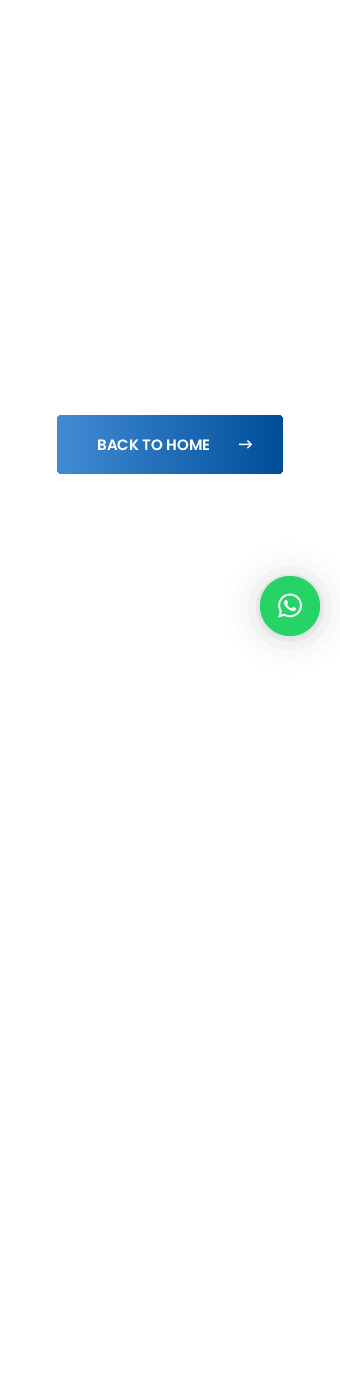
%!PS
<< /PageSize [340 1379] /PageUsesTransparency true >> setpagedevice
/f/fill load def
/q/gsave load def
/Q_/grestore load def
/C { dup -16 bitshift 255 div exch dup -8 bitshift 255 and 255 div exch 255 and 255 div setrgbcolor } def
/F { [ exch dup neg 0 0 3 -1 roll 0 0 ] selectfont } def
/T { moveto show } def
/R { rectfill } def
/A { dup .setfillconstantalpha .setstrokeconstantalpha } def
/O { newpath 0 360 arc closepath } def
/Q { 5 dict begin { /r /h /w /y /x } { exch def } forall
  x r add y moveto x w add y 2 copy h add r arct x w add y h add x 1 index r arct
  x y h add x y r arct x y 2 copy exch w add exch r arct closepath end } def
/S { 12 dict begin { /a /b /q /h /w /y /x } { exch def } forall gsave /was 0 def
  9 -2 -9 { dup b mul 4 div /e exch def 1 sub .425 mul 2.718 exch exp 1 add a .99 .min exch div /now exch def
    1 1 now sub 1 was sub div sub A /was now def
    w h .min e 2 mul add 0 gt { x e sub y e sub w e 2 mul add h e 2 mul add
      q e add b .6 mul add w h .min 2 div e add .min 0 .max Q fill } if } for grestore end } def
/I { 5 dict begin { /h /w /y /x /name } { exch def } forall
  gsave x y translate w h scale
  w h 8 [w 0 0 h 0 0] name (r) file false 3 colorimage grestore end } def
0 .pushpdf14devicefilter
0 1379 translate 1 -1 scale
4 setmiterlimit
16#FFFFFF C
0 0 340 1379 R
q 57 415 226 59 5 Q clip newpath
<< /ShadingType 2 /ColorSpace /DeviceRGB /Coords [57 445 283 445] /Extend [true true] /Function << /FunctionType 2 /Domain [0 1] /C0 [.259 .549 .831] /C1 [0 .306 .604] /N 1 >> >> shfill Q_
/Poppins-SemiBold 15 F
(BACK TO HOME) 97 450 T
(1.rgb) 239 440 14 9 I
16#000000 C
260 578 60 60 30 16 .16 S
260 577 60 60 30 3 .06 S
16#25D366 C
290 606 30 O f
(2.rgb) 278 593 24 25 I
.poppdf14devicefilter showpage
